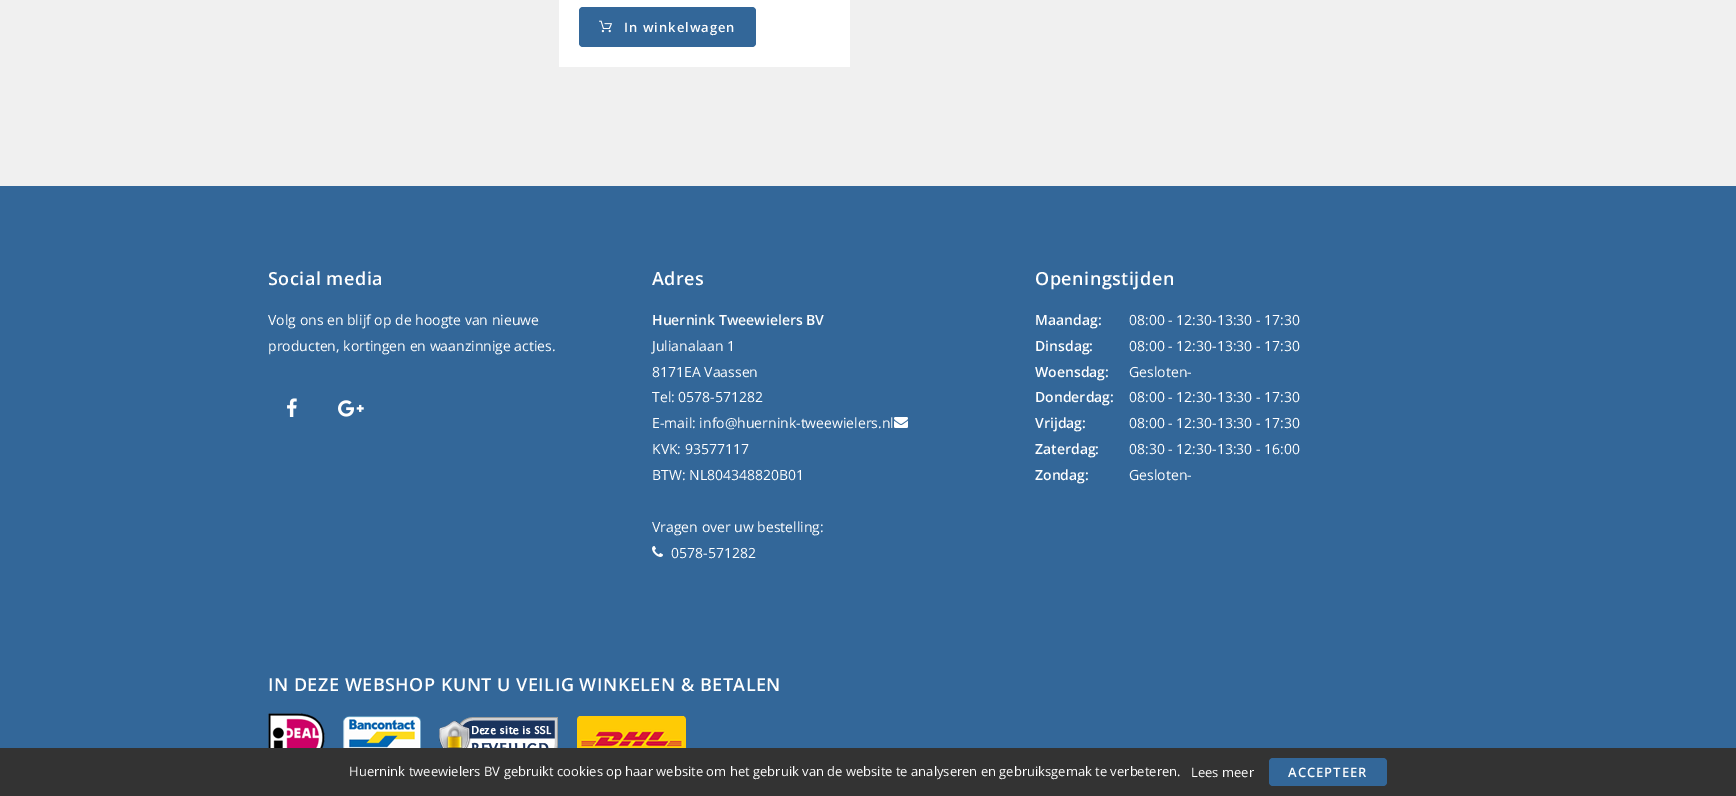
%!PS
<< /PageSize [1736 796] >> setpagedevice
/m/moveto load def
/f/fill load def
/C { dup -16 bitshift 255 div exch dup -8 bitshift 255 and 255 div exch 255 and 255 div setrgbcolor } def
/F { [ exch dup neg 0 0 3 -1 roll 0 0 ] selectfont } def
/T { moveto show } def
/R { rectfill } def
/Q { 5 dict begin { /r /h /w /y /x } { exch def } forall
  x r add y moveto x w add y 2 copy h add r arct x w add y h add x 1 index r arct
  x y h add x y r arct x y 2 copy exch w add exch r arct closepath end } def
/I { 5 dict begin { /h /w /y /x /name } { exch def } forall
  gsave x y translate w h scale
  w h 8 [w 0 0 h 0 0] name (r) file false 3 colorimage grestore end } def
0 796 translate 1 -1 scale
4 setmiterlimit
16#F0F0F0 C
0 0 1736 796 R
16#FFFFFF C
559 0 291 67 R
16#336799 C
579 7 177 40 4 Q f
(1.rgb) 599 20 13 13 I
/OpenSans-SemiBold 13 F
16#FFFFFF C
624 32 m 1 0 (In winkelwagen) ashow
16#336799 C
0 186 1736 562 R
/OpenSans-SemiBold 18 F
16#FFFFFF C
268 285 m .5 0 (Social media) ashow
/OpenSans-Regular 14 F
(Volg ons en blijf op de hoogte van nieuwe) 268 325 T
(producten, kortingen en waanzinnige acties.) 268 351 T
(2.rgb) 287 398 10 19 I
(3.rgb) 338 400 26 17 I
/OpenSans-SemiBold 18 F
652 285 m .5 0 (Adres) ashow
/OpenSans-SemiBold 14 F
(Huernink Tweewielers BV) 652 325 T
/OpenSans-Regular 14 F
(Julianalaan 1) 652 351 T
(8171EA Vaassen) 652 377 T
(Tel: 0578-571282) 652 402 T
(E-mail: info@huernink-tweewielers.nl) 652 428 T
(4.rgb) 894 417 14 11 I
(KVK: 93577117) 652 454 T
(BTW: NL804348820B01) 652 480 T
(Vragen over uw bestelling:) 652 532 T
(5.rgb) 652 546 11 11 I
(0578-571282) 671 558 T
/OpenSans-SemiBold 18 F
1035 285 m .5 0 (Openingstijden) ashow
/OpenSans-SemiBold 14 F
(Maandag:) 1035 325 T
/OpenSans-Regular 14 F
(08:00 - 12:30-13:30 - 17:30) 1129 325 T
/OpenSans-SemiBold 14 F
(Dinsdag:) 1035 351 T
/OpenSans-Regular 14 F
(08:00 - 12:30-13:30 - 17:30) 1129 351 T
/OpenSans-SemiBold 14 F
(Woensdag:) 1035 377 T
/OpenSans-Regular 14 F
(Gesloten-) 1129 377 T
/OpenSans-SemiBold 14 F
(Donderdag:) 1035 402 T
/OpenSans-Regular 14 F
(08:00 - 12:30-13:30 - 17:30) 1129 402 T
/OpenSans-SemiBold 14 F
(Vrijdag:) 1035 428 T
/OpenSans-Regular 14 F
(08:00 - 12:30-13:30 - 17:30) 1129 428 T
/OpenSans-SemiBold 14 F
(Zaterdag:) 1035 454 T
/OpenSans-Regular 14 F
(08:30 - 12:30-13:30 - 16:00) 1129 454 T
/OpenSans-SemiBold 14 F
(Zondag:) 1035 480 T
/OpenSans-Regular 14 F
(Gesloten-) 1129 480 T
/OpenSans-SemiBold 18 F
268 691 m .5 0 (IN DEZE WEBSHOP KUNT U VEILIG WINKELEN & BETALEN) ashow
(6.rgb) 268 713 57 35 I
(7.rgb) 343 716 78 32 I
(8.rgb) 439 717 119 31 I
(9.rgb) 577 716 109 32 I
16#333333 C
0 748 1736 48 R
/OpenSans-Regular 13 F
16#FFFFFF C
(Huernink tweewielers BV gebruikt cookies op haar website om het gebruik van de website te analyseren en gebruiksgemak te verbeteren.) 349 776 T
(Lees meer) 1191 777 T
16#336799 C
1269 758 118 28 4 Q f
/OpenSans-SemiBold 13 F
16#FFFFFF C
1288 777 m 1 0 (ACCEPTEER) ashow
showpage
